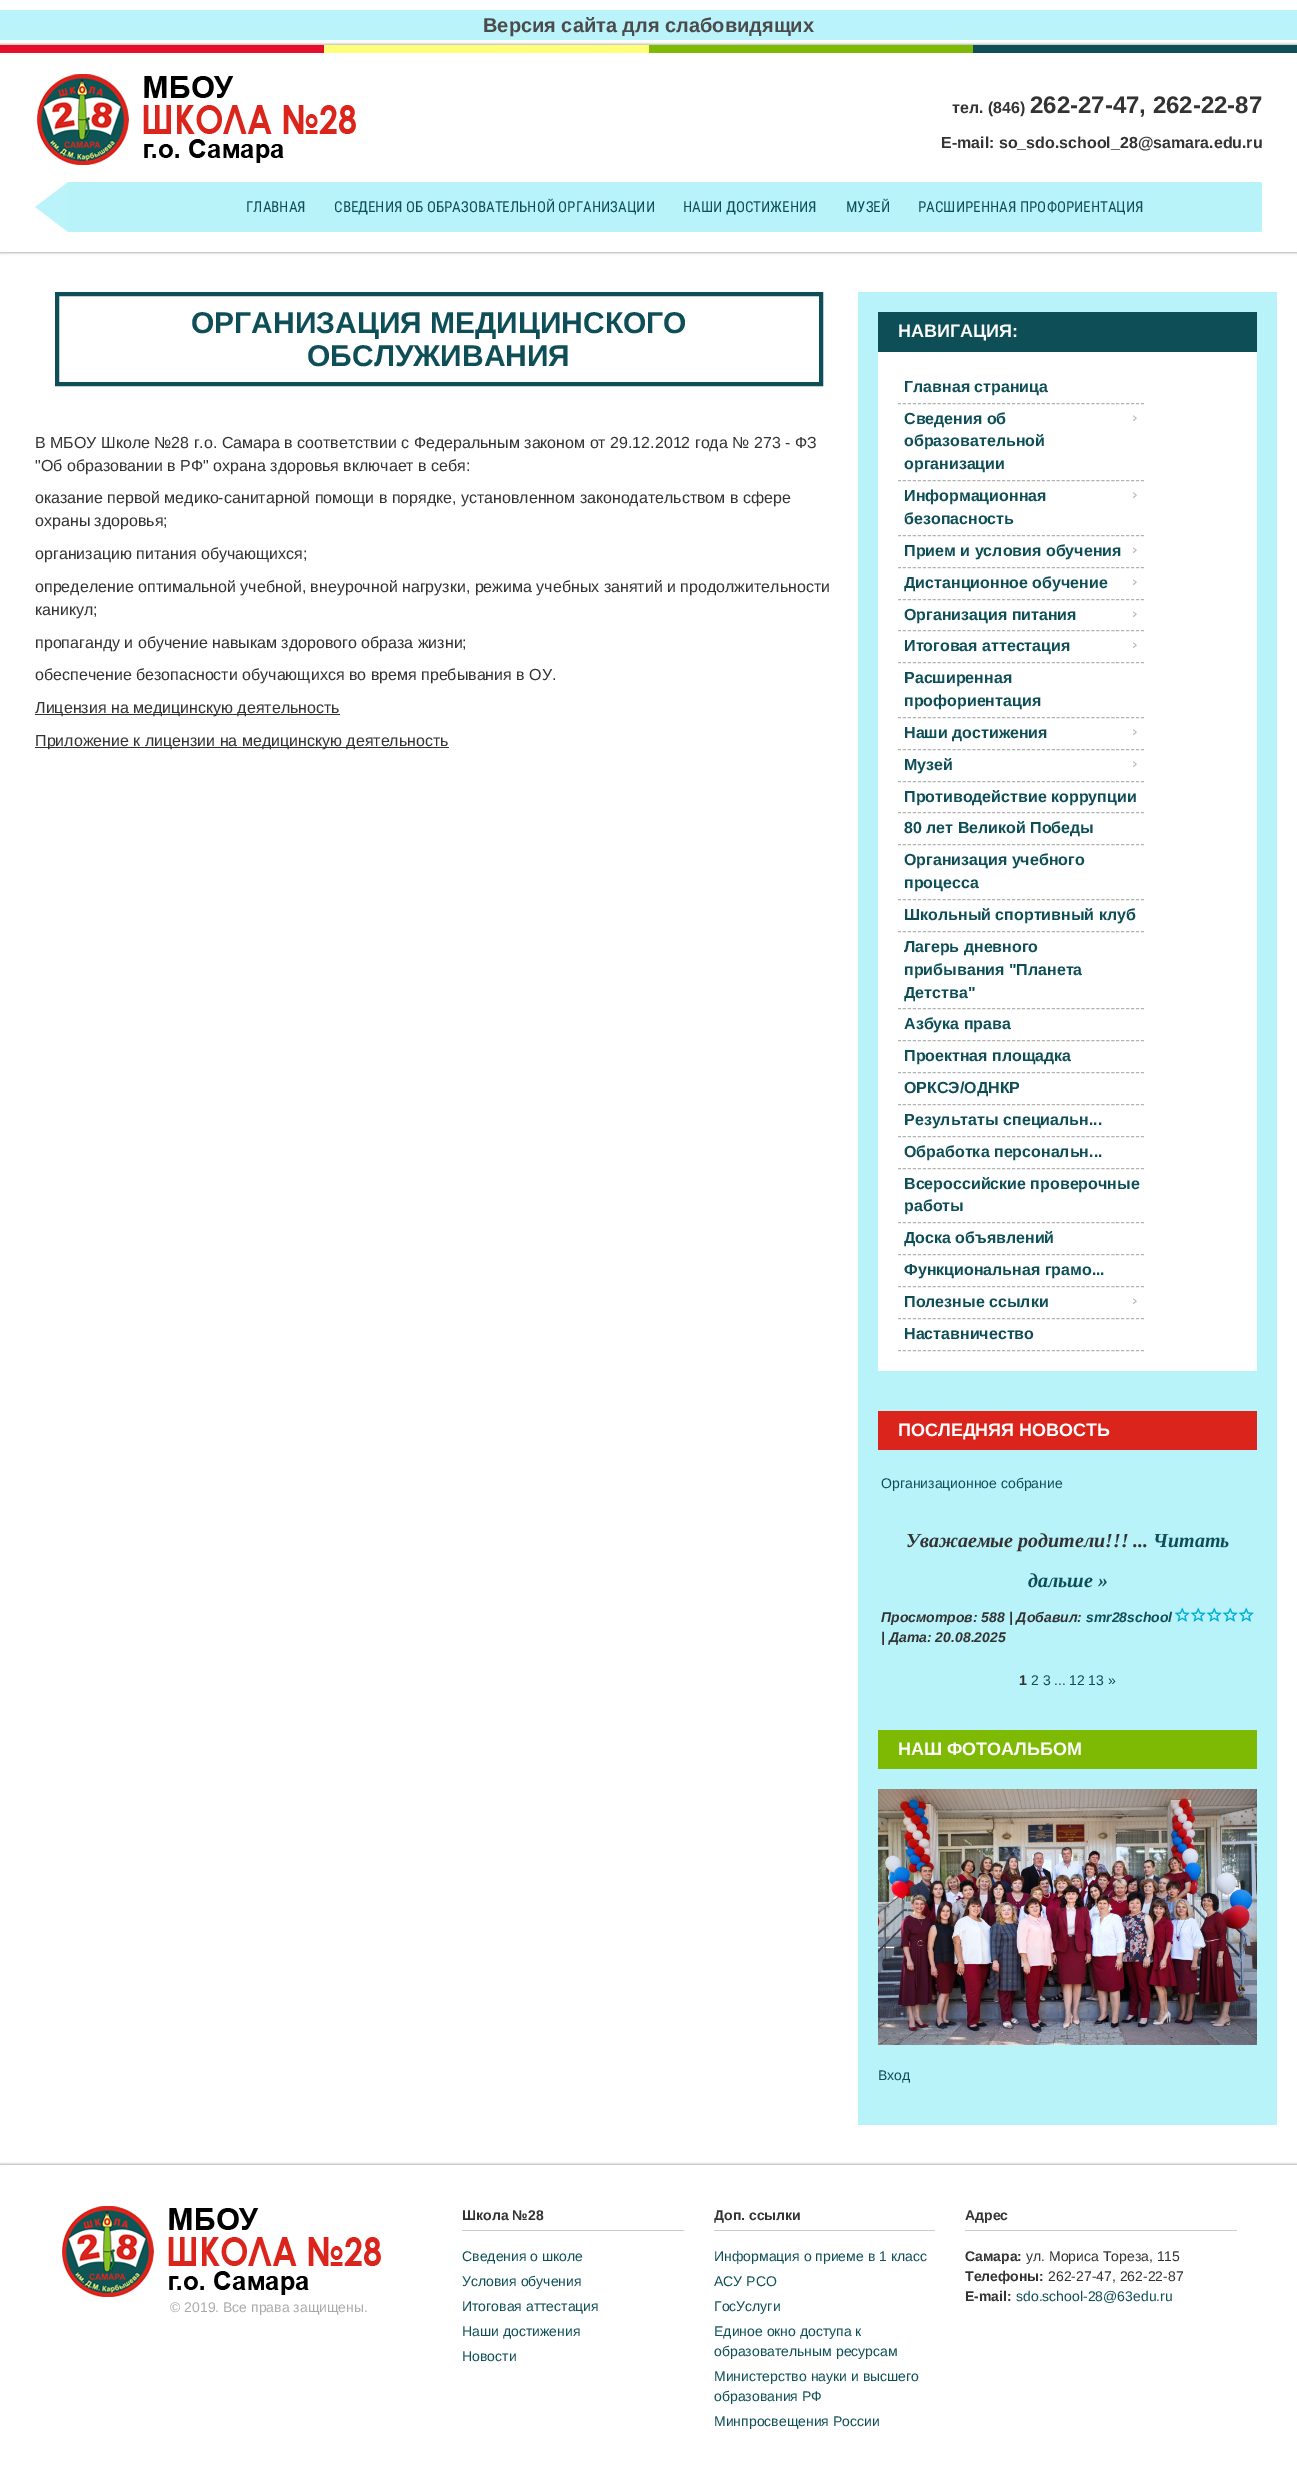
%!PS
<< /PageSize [1297 2466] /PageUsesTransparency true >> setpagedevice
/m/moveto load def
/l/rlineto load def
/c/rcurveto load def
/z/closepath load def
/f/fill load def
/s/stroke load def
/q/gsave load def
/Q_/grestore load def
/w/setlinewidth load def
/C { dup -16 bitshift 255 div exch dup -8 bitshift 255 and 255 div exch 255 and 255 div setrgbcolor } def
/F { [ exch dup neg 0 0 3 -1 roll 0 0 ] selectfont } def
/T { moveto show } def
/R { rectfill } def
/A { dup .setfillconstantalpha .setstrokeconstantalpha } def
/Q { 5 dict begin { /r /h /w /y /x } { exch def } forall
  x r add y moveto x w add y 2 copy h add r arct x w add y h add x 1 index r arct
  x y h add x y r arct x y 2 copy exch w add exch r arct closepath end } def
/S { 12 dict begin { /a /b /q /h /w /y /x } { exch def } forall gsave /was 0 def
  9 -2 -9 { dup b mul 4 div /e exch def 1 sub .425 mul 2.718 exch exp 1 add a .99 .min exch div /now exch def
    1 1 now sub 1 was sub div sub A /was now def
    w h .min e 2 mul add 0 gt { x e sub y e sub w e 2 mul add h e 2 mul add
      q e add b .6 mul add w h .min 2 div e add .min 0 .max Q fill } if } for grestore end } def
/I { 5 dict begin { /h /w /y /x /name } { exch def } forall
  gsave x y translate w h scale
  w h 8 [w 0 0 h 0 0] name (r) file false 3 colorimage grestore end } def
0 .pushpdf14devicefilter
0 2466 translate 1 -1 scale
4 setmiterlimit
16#FFFFFF C
0 0 1297 2466 R
16#BAF3FA C
0 10 1297 30 R
/LiberationSans-Bold 20 F
16#4B4B4B C
(Версия сайта для слабовидящих) 483 32 T
q
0 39 m 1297 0 l 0 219 l -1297 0 l z 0 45 m 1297 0 l 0 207 l -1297 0 l z eoclip newpath
16#000000 C
0 45 1297 207 0 1.5 .5 S
Q_
16#E70E2D C
0 45 324 8 R
16#FFFF7A C
324 45 325 8 R
16#7EBA03 C
649 45 324 8 R
16#0E4E56 C
973 45 324 8 R
(1.rgb) 37 74 319 91 I
/LiberationSans-Bold 16 F
16#333333 C
(тел. \(846\)) 952 113 T
/LiberationSans-Bold 24 F
(262-27-47, 262-22-87) 1030 113 T
/LiberationSans-Bold 16 F
(E-mail: so_sdo.school_28@samara.edu.ru) 941 148 T
(2.rgb) 35 182 33 50 I
16#B9F3FA C
68 182 m 1192 0 l 1 0 2 1 2 2 c 0 46 l 0 1 -1 2 -2 2 c -1192 0 l z f
/RobotoCondensed-Regular 15 F
16#0E4E56 C
(ГЛАВНАЯ) 246 212 T
(СВЕДЕНИЯ ОБ ОБРАЗОВАТЕЛЬНОЙ ОРГАНИЗАЦИИ) 334 212 T
(НАШИ ДОСТИЖЕНИЯ) 683 212 T
(МУЗЕЙ) 846 212 T
(РАСШИРЕННАЯ ПРОФОРИЕНТАЦИЯ) 918 212 T
4 w
57 294 764 90 rectstroke
/LiberationSans-Bold 30 F
(ОРГАНИЗАЦИЯ МЕДИЦИНСКОГО) 191 333 T
(ОБСЛУЖИВАНИЯ) 307 366 T
/LiberationSans-Regular 16 F
16#333333 C
(В МБОУ Школе №28 г.о. Самара в соответствии с Федеральным законом от 29.12.2012 года № 273 - ФЗ) 35 448 T
("Об образовании в РФ" охрана здоровья включает в себя:) 35 471 T
(оказание первой медико-санитарной помощи в порядке, установленном законодательством в сфере) 35 503 T
(охраны здоровья;) 35 526 T
(организацию питания обучающихся;) 35 559 T
(определение оптимальной учебной, внеурочной нагрузки, режима учебных занятий и продолжительности) 35 592 T
(каникул;) 35 615 T
(пропаганду и обучение навыкам здорового образа жизни;) 35 648 T
(обеспечение безопасности обучающихся во время пребывания в ОУ.) 35 680 T
35 714 305 1 R
(Лицензия на медицинскую деятельность) 35 713 T
35 747 414 1 R
(Приложение к лицензии на медицинскую деятельность) 35 746 T
16#B9F3FA C
858 292 419 1833 R
16#0E4E56 C
878 312 379 40 R
/LiberationSans-Bold 18 F
16#FFFFFF C
(НАВИГАЦИЯ:) 898 337 T
878 352 379 1019 R
16#B3B3B3 C
1 w
[3 1.96] 0 setdash
898 403.5 m 246 0 l s
/LiberationSans-Bold 16 F
16#0E4E56 C
(Главная страница) 904 392 T
(3.rgb) 1133 415 4 7 I
16#B3B3B3 C
898 480.5 m 246 0 l s
16#0E4E56 C
(Сведения об) 904 424 T
(образовательной) 904 446 T
(организации) 904 469 T
(3.rgb) 1133 492 4 7 I
16#B3B3B3 C
898 535.5 m 246 0 l s
16#0E4E56 C
(Информационная) 904 501 T
(безопасность) 904 524 T
(3.rgb) 1133 547 4 7 I
16#B3B3B3 C
898 567.5 m 246 0 l s
16#0E4E56 C
(Прием и условия обучения) 904 556 T
(3.rgb) 1133 579 4 7 I
16#B3B3B3 C
898 599.5 m 246 0 l s
16#0E4E56 C
(Дистанционное обучение) 904 588 T
(3.rgb) 1133 611 4 7 I
16#B3B3B3 C
898 630.5 m 246 0 l s
16#0E4E56 C
(Организация питания) 904 620 T
(3.rgb) 1133 642 4 7 I
16#B3B3B3 C
898 662.5 m 246 0 l s
16#0E4E56 C
(Итоговая аттестация) 904 651 T
16#B3B3B3 C
898 717.5 m 246 0 l s
16#0E4E56 C
(Расширенная) 904 683 T
(профориентация) 904 706 T
(3.rgb) 1133 729 4 7 I
16#B3B3B3 C
898 749.5 m 246 0 l s
16#0E4E56 C
(Наши достижения) 904 738 T
(3.rgb) 1133 761 4 7 I
16#B3B3B3 C
898 781.5 m 246 0 l s
16#0E4E56 C
(Музей) 904 770 T
16#B3B3B3 C
898 812.5 m 246 0 l s
16#0E4E56 C
(Противодействие коррупции) 904 802 T
16#B3B3B3 C
898 844.5 m 246 0 l s
16#0E4E56 C
(80 лет Великой Победы) 904 833 T
16#B3B3B3 C
898 899.5 m 246 0 l s
16#0E4E56 C
(Организация учебного) 904 865 T
(процесса) 904 888 T
16#B3B3B3 C
898 931.5 m 246 0 l s
16#0E4E56 C
(Школьный спортивный клуб) 904 920 T
16#B3B3B3 C
898 1008.5 m 246 0 l s
16#0E4E56 C
(Лагерь дневного) 904 952 T
(прибывания "Планета) 904 975 T
(Детства") 904 998 T
16#B3B3B3 C
898 1040.5 m 246 0 l s
16#0E4E56 C
(Азбука права) 904 1029 T
16#B3B3B3 C
898 1072.5 m 246 0 l s
16#0E4E56 C
(Проектная площадка) 904 1061 T
16#B3B3B3 C
898 1104.5 m 246 0 l s
16#0E4E56 C
(ОРКСЭ/ОДНКР) 904 1093 T
16#B3B3B3 C
898 1136.5 m 246 0 l s
16#0E4E56 C
(Результаты специальн...) 904 1125 T
16#B3B3B3 C
898 1168.5 m 246 0 l s
16#0E4E56 C
(Обработка персональн...) 904 1157 T
16#B3B3B3 C
898 1222.5 m 246 0 l s
16#0E4E56 C
(Всероссийские проверочные) 904 1189 T
(работы) 904 1211 T
16#B3B3B3 C
898 1254.5 m 246 0 l s
16#0E4E56 C
(Доска объявлений) 904 1243 T
16#B3B3B3 C
898 1286.5 m 246 0 l s
16#0E4E56 C
(Функциональная грамо...) 904 1275 T
(3.rgb) 1133 1298 4 7 I
16#B3B3B3 C
898 1318.5 m 246 0 l s
16#0E4E56 C
(Полезные ссылки) 904 1307 T
16#B3B3B3 C
898 1350.5 m 246 0 l s
16#0E4E56 C
(Наставничество) 904 1339 T
16#DA241C C
878 1411 379 39 R
/LiberationSans-Bold 18 F
16#FFFFFF C
(ПОСЛЕДНЯЯ НОВОСТЬ) 898 1436 T
/LiberationSans-Regular 14 F
16#0E4E56 C
(Организационное собрание) 881 1488 T
/LiberationSerif-BoldItalic 20 F
16#333333 C
(Уважаемые родители!!! ...) 906 1547 T
16#0E4E56 C
(Читать) 1153 1547 T
(дальше ») 1028 1587 T
/LiberationSans-BoldItalic 14 F
16#333333 C
(Просмотров: 588 | Добавил:) 881 1622 T
16#0E4E56 C
(smr28school) 1086 1622 T
(4.rgb) 1175 1607 79 15 I
16#333333 C
(| Дата: 20.08.2025) 881 1642 T
/LiberationSans-Bold 14 F
(1) 1019 1685 T
/LiberationSans-Regular 14 F
16#0E4E56 C
(2 3) 1031 1685 T
16#333333 C
(...) 1054 1685 T
16#0E4E56 C
(12 13 ») 1069 1685 T
16#7EBA03 C
878 1730 379 39 R
/LiberationSans-Bold 18 F
16#FFFFFF C
(НАШ ФОТОАЛЬБОМ) 898 1755 T
(5.rgb) 878 1789 379 256 I
/LiberationSans-Regular 14 F
16#0E4E56 C
(Вход) 878 2080 T
q
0 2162 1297 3 rectclip
16#000000 C
0 2165 1297 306 0 1.5 .5 S
Q_
16#CCCCCC C
462 2230 222 1 R
/LiberationSans-Bold 14 F
16#333333 C
(Школа №28) 462 2220 T
/LiberationSans-Regular 14 F
16#0E4E56 C
(Сведения о школе) 462 2261 T
(Условия обучения) 462 2286 T
(Итоговая аттестация) 462 2311 T
(Наши достижения) 462 2336 T
(Новости) 462 2361 T
16#CCCCCC C
714 2230 221 1 R
/LiberationSans-Bold 14 F
16#333333 C
(Доп. ссылки) 714 2220 T
/LiberationSans-Regular 14 F
16#0E4E56 C
(Информация о приеме в 1 класс) 714 2261 T
(АСУ РСО) 714 2286 T
(ГосУслуги) 714 2311 T
(Единое окно доступа к) 714 2336 T
(образовательным ресурсам) 714 2356 T
(Министерство науки и высшего) 714 2381 T
(образования РФ) 714 2401 T
(Минпросвещения России) 714 2426 T
16#CCCCCC C
965 2230 272 1 R
/LiberationSans-Bold 14 F
16#333333 C
(Адрес) 965 2220 T
(Самара:) 965 2261 T
/LiberationSans-Regular 14 F
(ул. Мориса Тореза, 115) 1026 2261 T
/LiberationSans-Bold 14 F
(Телефоны:) 965 2281 T
/LiberationSans-Regular 14 F
(262-27-47, 262-22-87) 1048 2281 T
/LiberationSans-Bold 14 F
(E-mail:) 965 2301 T
/LiberationSans-Regular 14 F
16#0E4E56 C
(sdo.school-28@63edu.ru) 1016 2301 T
(1.rgb) 62 2206 319 91 I
16#AAAAAA C
(© 2019. Все права защищены.) 170 2312 T
.poppdf14devicefilter showpage
